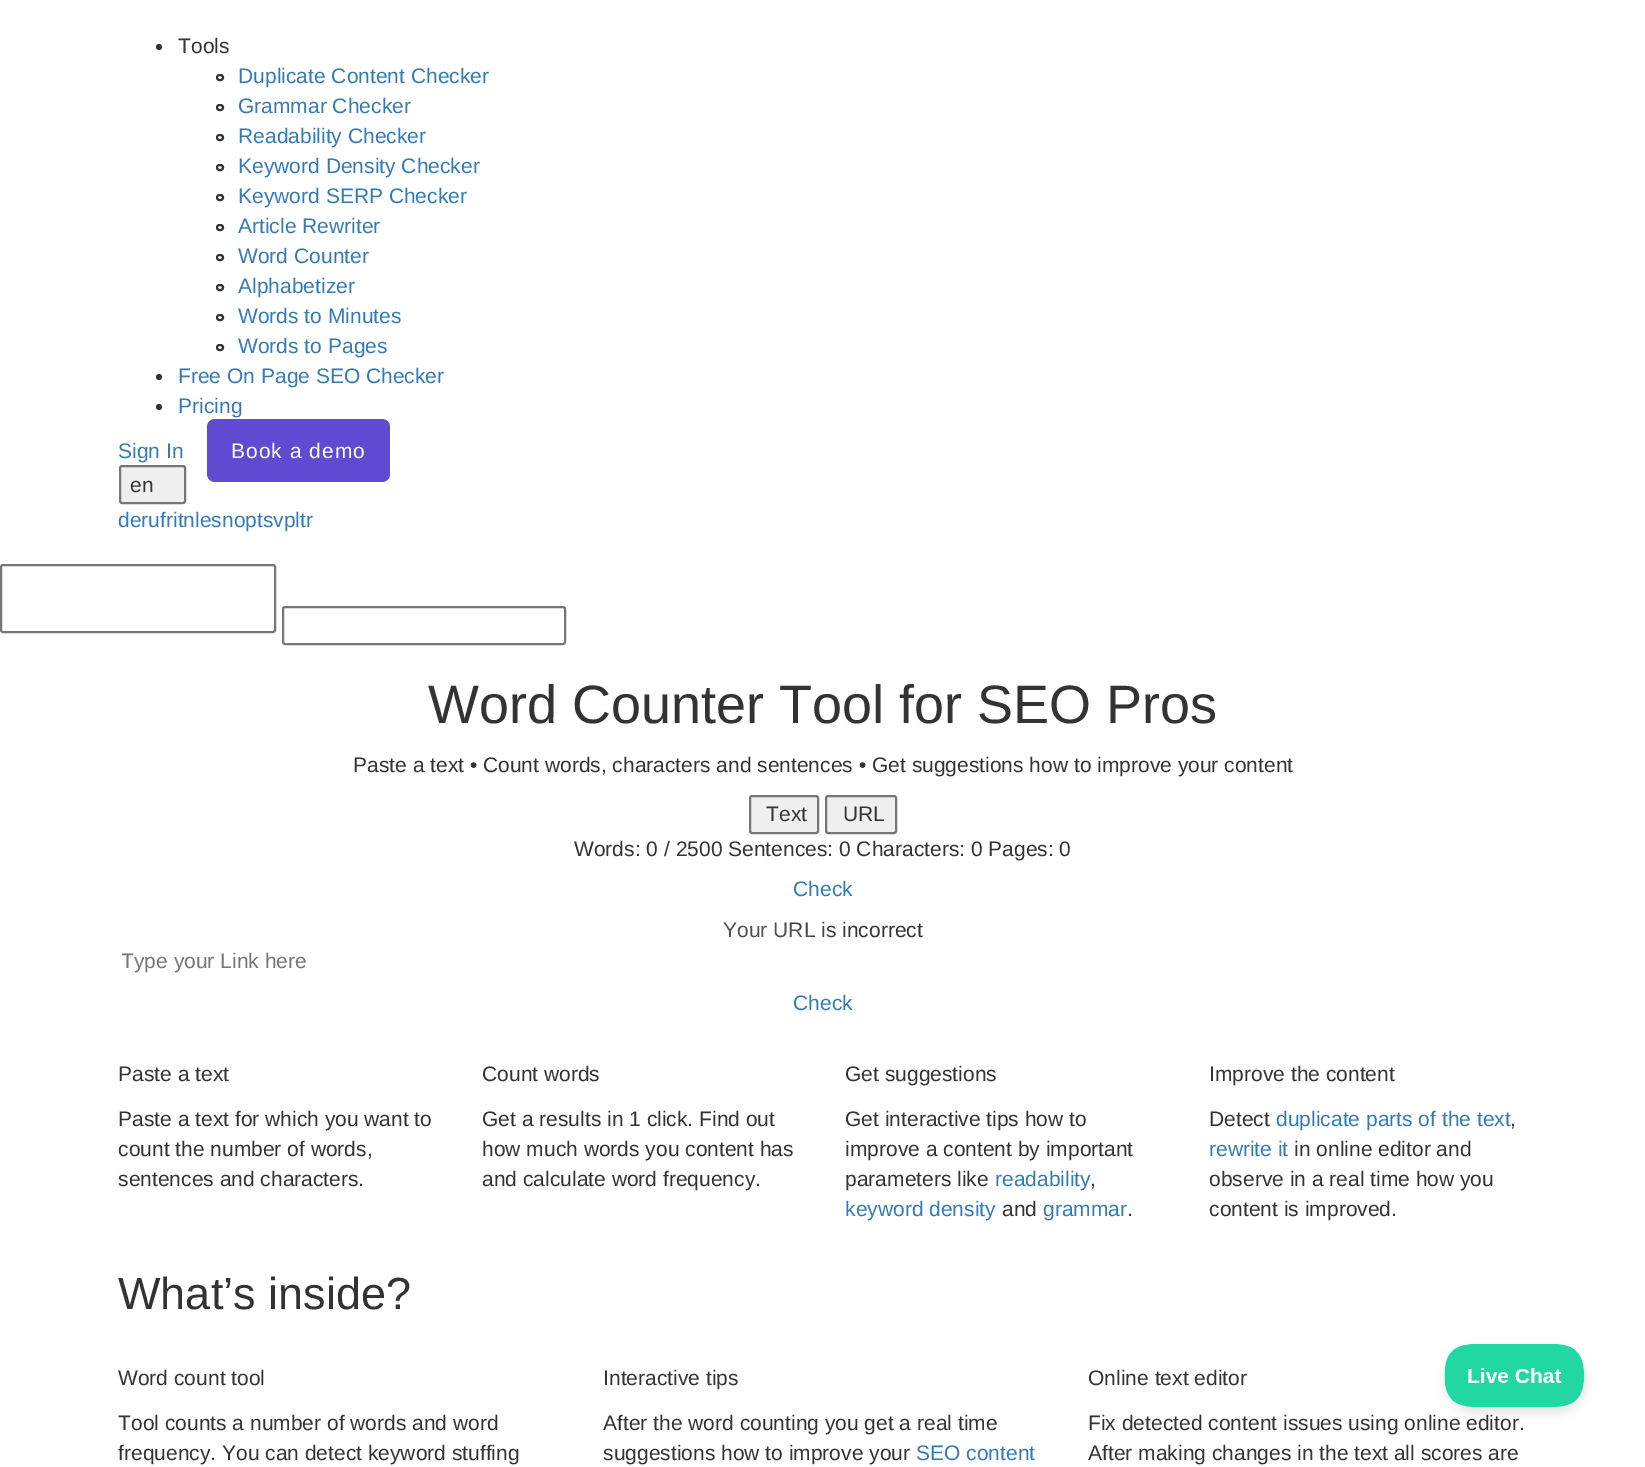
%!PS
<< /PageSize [1645 1467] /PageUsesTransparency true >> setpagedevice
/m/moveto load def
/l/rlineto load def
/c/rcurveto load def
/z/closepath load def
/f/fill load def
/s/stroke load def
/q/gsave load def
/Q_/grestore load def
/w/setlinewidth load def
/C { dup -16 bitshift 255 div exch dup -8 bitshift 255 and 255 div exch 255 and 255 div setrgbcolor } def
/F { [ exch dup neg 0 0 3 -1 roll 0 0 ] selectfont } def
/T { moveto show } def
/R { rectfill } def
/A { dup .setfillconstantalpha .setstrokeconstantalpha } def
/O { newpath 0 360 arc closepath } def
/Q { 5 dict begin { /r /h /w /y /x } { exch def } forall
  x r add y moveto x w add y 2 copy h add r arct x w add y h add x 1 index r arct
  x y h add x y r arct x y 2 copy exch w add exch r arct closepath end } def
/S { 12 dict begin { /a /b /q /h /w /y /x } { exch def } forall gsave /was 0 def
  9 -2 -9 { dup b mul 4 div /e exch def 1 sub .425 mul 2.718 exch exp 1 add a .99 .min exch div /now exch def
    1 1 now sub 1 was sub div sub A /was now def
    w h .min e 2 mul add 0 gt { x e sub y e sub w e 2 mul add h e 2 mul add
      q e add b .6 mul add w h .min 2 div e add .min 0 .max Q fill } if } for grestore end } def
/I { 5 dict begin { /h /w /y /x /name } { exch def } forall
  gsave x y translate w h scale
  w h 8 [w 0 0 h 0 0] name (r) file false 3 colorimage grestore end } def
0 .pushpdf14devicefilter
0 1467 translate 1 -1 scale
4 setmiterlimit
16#FFFFFF C
0 0 1645 1467 R
16#333333 C
159 47 3 O f
/LiberationSans-Regular 21 F
(Tools) 178 53 T
2 w
217 75 6 5 2.5 Q s
16#337AB7 C
(Duplicate Content Checker) 238 83 T
16#333333 C
217 105 6 5 2.5 Q s
16#337AB7 C
(Grammar Checker) 238 113 T
16#333333 C
217 135 6 5 2.5 Q s
16#337AB7 C
(Readability Checker) 238 143 T
16#333333 C
217 165 6 5 2.5 Q s
16#337AB7 C
(Keyword Density Checker) 238 173 T
16#333333 C
217 195 6 5 2.5 Q s
16#337AB7 C
(Keyword SERP Checker) 238 203 T
16#333333 C
217 225 6 5 2.5 Q s
16#337AB7 C
(Article Rewriter) 238 233 T
16#333333 C
217 255 6 5 2.5 Q s
16#337AB7 C
(Word Counter) 238 263 T
16#333333 C
217 285 6 5 2.5 Q s
16#337AB7 C
(Alphabetizer) 238 293 T
16#333333 C
217 315 6 5 2.5 Q s
16#337AB7 C
(Words to Minutes) 238 323 T
16#333333 C
217 345 6 5 2.5 Q s
16#337AB7 C
(Words to Pages) 238 353 T
16#333333 C
159 377 3 O f
16#337AB7 C
(Free On Page SEO Checker) 178 383 T
16#333333 C
159 407 3 O f
16#337AB7 C
(Pricing) 178 413 T
(Sign In) 118 458 T
16#5F4AD1 C
207 419 183 63 8 Q f
16#FFFFFF C
231 458 m 1 0 (Book a demo) ashow
16#EFEFEF C
120 466 65 37 2 Q q f Q_
16#767676 C
s
16#333333 C
(en) 130 492 T
16#337AB7 C
(derufritnlesnoptsvpltr) 118 527 T
16#767676 C
1 565 274 67 2 Q s
283 607 282 37 2 Q s
/LiberationSans-Regular 54 F
16#333333 C
(Word Counter Tool for SEO Pros) 428 723 T
/LiberationSans-Regular 21 F
(Paste a text • Count words, characters and sentences • Get suggestions how to improve your content) 353 772 T
16#EFEFEF C
750 796 68 37 2 Q q f Q_
16#767676 C
s
16#333333 C
(Text) 766 821 T
16#EFEFEF C
826 796 70 37 2 Q q f Q_
16#767676 C
s
16#333333 C
(URL) 843 821 T
(Words: 0 / 2500 Sentences: 0 Characters: 0 Pages: 0) 574 856 T
16#337AB7 C
(Check) 793 896 T
16#333333 C
(Your URL is incorrect) 723 937 T
q
122 950 1404 24 rectclip
16#757575 C
(Type your Link here) 121 968 T
Q_
q
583 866 m 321 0 l 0 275 l -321 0 l z 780 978 m 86 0 l 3.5 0 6 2.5 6 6 c 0 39 l 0 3.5 -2.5 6 -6 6 c -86 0 l -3.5 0 -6 -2.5 -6 -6 c 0 -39 l 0 -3.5 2.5 -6 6 -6 c z eoclip newpath
16#FFFFFF C
680 963 127 81 21 32 1 S
Q_
16#337AB7 C
(Check) 793 1010 T
16#333333 C
(Paste a text) 118 1081 T
(Paste a text for which you want to) 118 1126 T
(count the number of words,) 118 1156 T
(sentences and characters.) 118 1186 T
(Count words) 482 1081 T
(Get a results in 1 click. Find out) 482 1126 T
(how much words you content has) 482 1156 T
(and calculate word frequency.) 482 1186 T
(Get suggestions) 845 1081 T
(Get interactive tips how to) 845 1126 T
(improve a content by important) 845 1156 T
(parameters like) 845 1186 T
16#337AB7 C
(readability) 995 1186 T
16#333333 C
(,) 1090 1186 T
16#337AB7 C
(keyword density) 845 1216 T
16#333333 C
(and) 1002 1216 T
16#337AB7 C
(grammar) 1043 1216 T
16#333333 C
(.) 1127 1216 T
(Improve the content) 1209 1081 T
(Detect) 1209 1126 T
16#337AB7 C
(duplicate parts of the text) 1276 1126 T
16#333333 C
(,) 1510 1126 T
16#337AB7 C
(rewrite it) 1209 1156 T
16#333333 C
(in online editor and) 1294 1156 T
(observe in a real time how you) 1209 1186 T
(content is improved.) 1209 1216 T
/LiberationSans-Regular 45 F
(What’s inside?) 118 1309 T
/LiberationSans-Regular 21 F
(Word count tool) 118 1385 T
(Tool counts a number of words and word) 118 1430 T
(frequency. You can detect keyword stuffing) 118 1460 T
(Interactive tips) 603 1385 T
(After the word counting you get a real time) 603 1430 T
(suggestions how to improve your) 603 1460 T
16#337AB7 C
(SEO content) 916 1460 T
16#333333 C
(Online text editor) 1088 1385 T
(Fix detected content issues using online editor.) 1088 1430 T
(After making changes in the text all scores are) 1088 1460 T
16#000000 C
1445 1350 141 63 31.5 5 .1 S
(1.rgb) 1444 1344 140 63 I
.poppdf14devicefilter showpage
